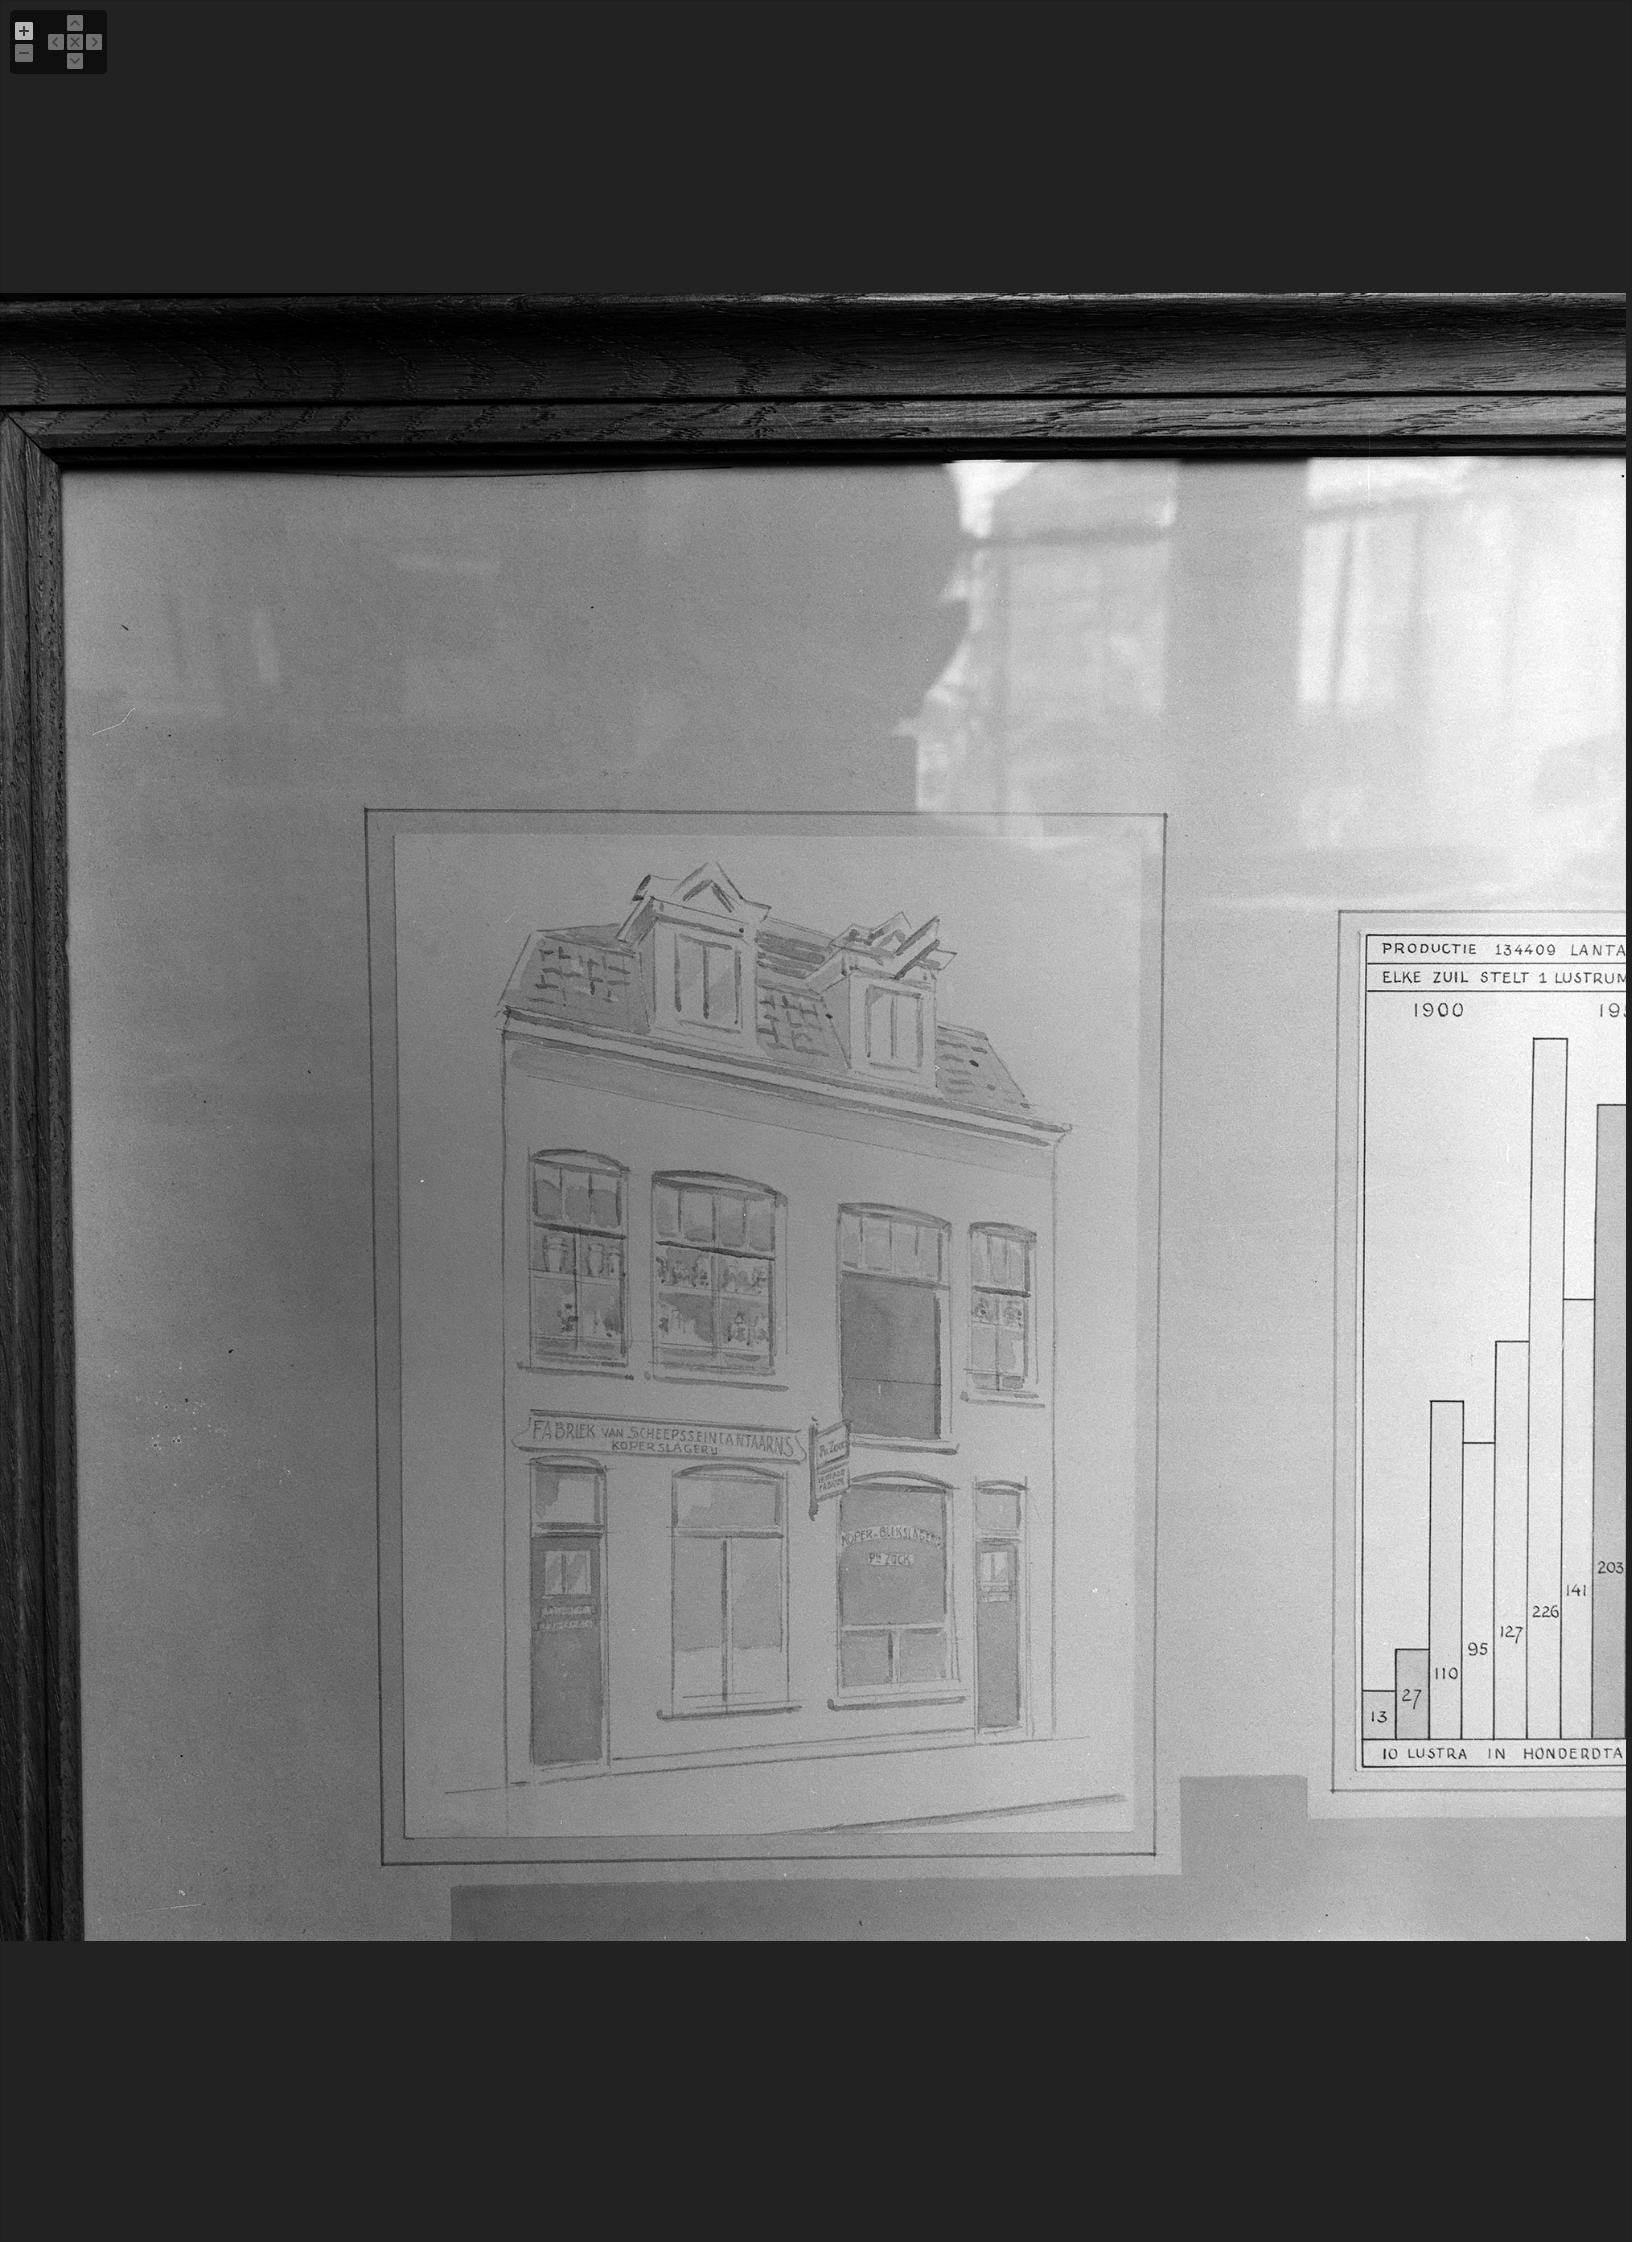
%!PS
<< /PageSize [1632 2242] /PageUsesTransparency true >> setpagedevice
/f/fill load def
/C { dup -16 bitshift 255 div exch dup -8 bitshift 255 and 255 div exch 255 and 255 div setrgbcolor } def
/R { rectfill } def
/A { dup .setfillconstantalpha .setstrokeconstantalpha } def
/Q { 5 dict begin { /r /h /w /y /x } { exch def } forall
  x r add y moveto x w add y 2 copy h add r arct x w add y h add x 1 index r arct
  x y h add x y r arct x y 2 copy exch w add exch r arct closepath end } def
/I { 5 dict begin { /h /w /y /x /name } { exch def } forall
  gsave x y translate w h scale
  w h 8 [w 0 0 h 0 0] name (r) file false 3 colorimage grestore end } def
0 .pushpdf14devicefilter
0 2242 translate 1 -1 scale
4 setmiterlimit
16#222222 C
0 0 1632 2242 R
(7.rgb) 0 293 1626 1648 I
0.1 A
16#000000 C
0 0 1 2242 R
1 A
16#1F1F1F C
1 0 1630 1 R
1631 0 1 2242 R
16#0F0F0F C
10 10 97 64 5 Q f
16#B7B7B7 C
15 22 18 18 2 Q f
(1.rgb) 19 26 10 10 I
16#6F6F6F C
67 15 16 16 2 Q f
(2.rgb) 70 20 10 6 I
48 34 16 16 2 Q f
(3.rgb) 52 37 6 10 I
67 34 16 16 2 Q f
(4.rgb) 70 37 10 10 I
86 34 16 16 2 Q f
(5.rgb) 92 37 6 10 I
15 44 18 18 2 Q f
16#434343 C
19 52 10 2 R
16#6F6F6F C
67 53 16 16 2 Q f
(6.rgb) 70 58 10 6 I
16#1F1F1F C
1 2241 1630 1 R
.poppdf14devicefilter showpage
